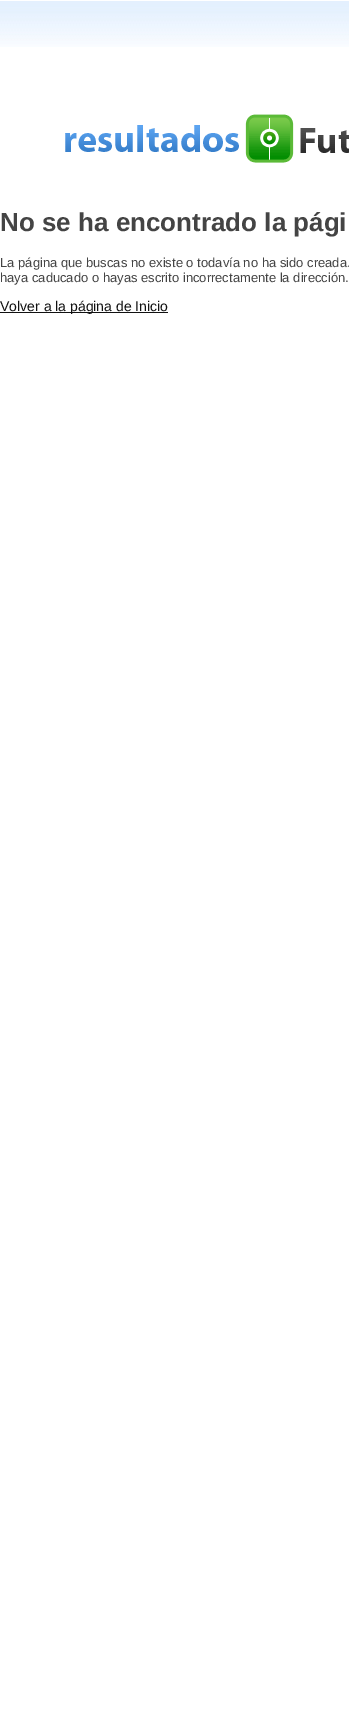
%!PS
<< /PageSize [349 1723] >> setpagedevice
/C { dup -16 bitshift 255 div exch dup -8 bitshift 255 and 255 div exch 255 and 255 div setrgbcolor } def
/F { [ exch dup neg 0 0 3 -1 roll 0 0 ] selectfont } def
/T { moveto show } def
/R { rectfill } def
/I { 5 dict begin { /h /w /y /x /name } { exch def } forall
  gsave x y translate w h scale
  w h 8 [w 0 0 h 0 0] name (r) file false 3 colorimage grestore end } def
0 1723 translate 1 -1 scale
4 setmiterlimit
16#FFFFFF C
0 0 349 1723 R
(1.rgb) 0 1 349 46 I
(2.rgb) 65 114 284 49 I
/LiberationSans-Bold 26 F
16#444444 C
(No se ha encontrado la pági) 0 231 T
/LiberationSans-Regular 13 F
(La página que buscas no existe o todavía no ha sido creada.) 0 267 T
(haya caducado o hayas escrito incorrectamente la dirección.) 0 282 T
16#111111 C
0 312 168 1 R
/LiberationSans-Regular 14 F
(Volver a la página de Inicio) 0 311 T
showpage
